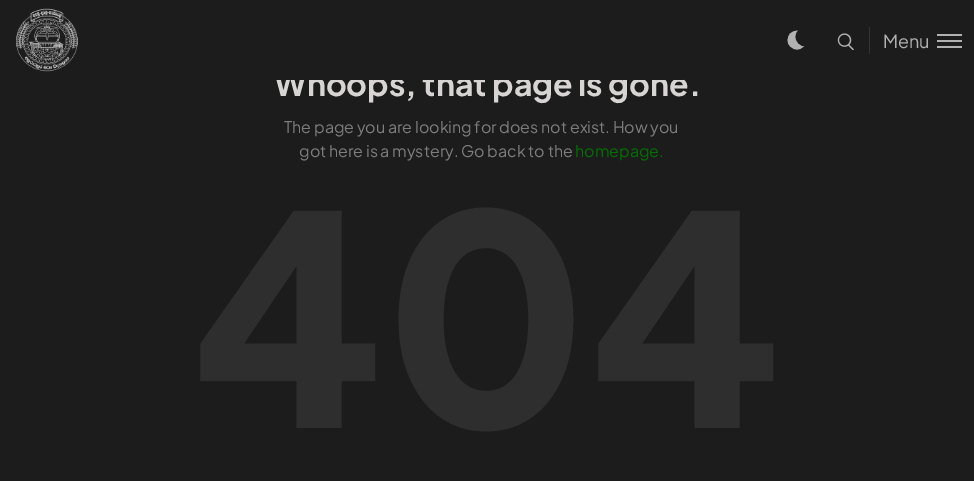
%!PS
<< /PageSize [974 481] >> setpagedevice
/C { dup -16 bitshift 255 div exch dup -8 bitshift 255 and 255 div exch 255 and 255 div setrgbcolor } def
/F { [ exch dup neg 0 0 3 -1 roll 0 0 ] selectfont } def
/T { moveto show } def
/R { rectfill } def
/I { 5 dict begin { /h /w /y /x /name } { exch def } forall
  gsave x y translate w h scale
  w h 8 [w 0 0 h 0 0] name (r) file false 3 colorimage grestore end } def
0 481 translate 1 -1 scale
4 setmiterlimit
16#1C1C1C C
0 0 974 481 R
/PlusJakartaSans-Bold 32 F
16#D8D4D4 C
(Whoops, that page is gone.) 274 96 T
16#1C1C1C C
273 71 411 9 R
(1.rgb) 16 8 62 64 I
(2.rgb) 787 30 18 20 I
(3.rgb) 837 33 17 17 I
16#333333 C
869 27 1 27 R
/PlusJakartaSans-Regular 18 F
16#B1B1B1 C
(Menu) 883 48 T
937 40 25 2 R
937 34 25 2 R
937 46 25 2 R
/PlusJakartaSans-Regular 16 F
16#7D7D7D C
(The page you are looking for does not exist. How you) 284 133 T
(got here is a mystery. Go back to the) 299 157 T
16#056F05 C
(homepage.) 575 157 T
/PlusJakartaSans-ExtraBold 292 F
16#2F2E2E C
(404) 191 428 T
showpage
